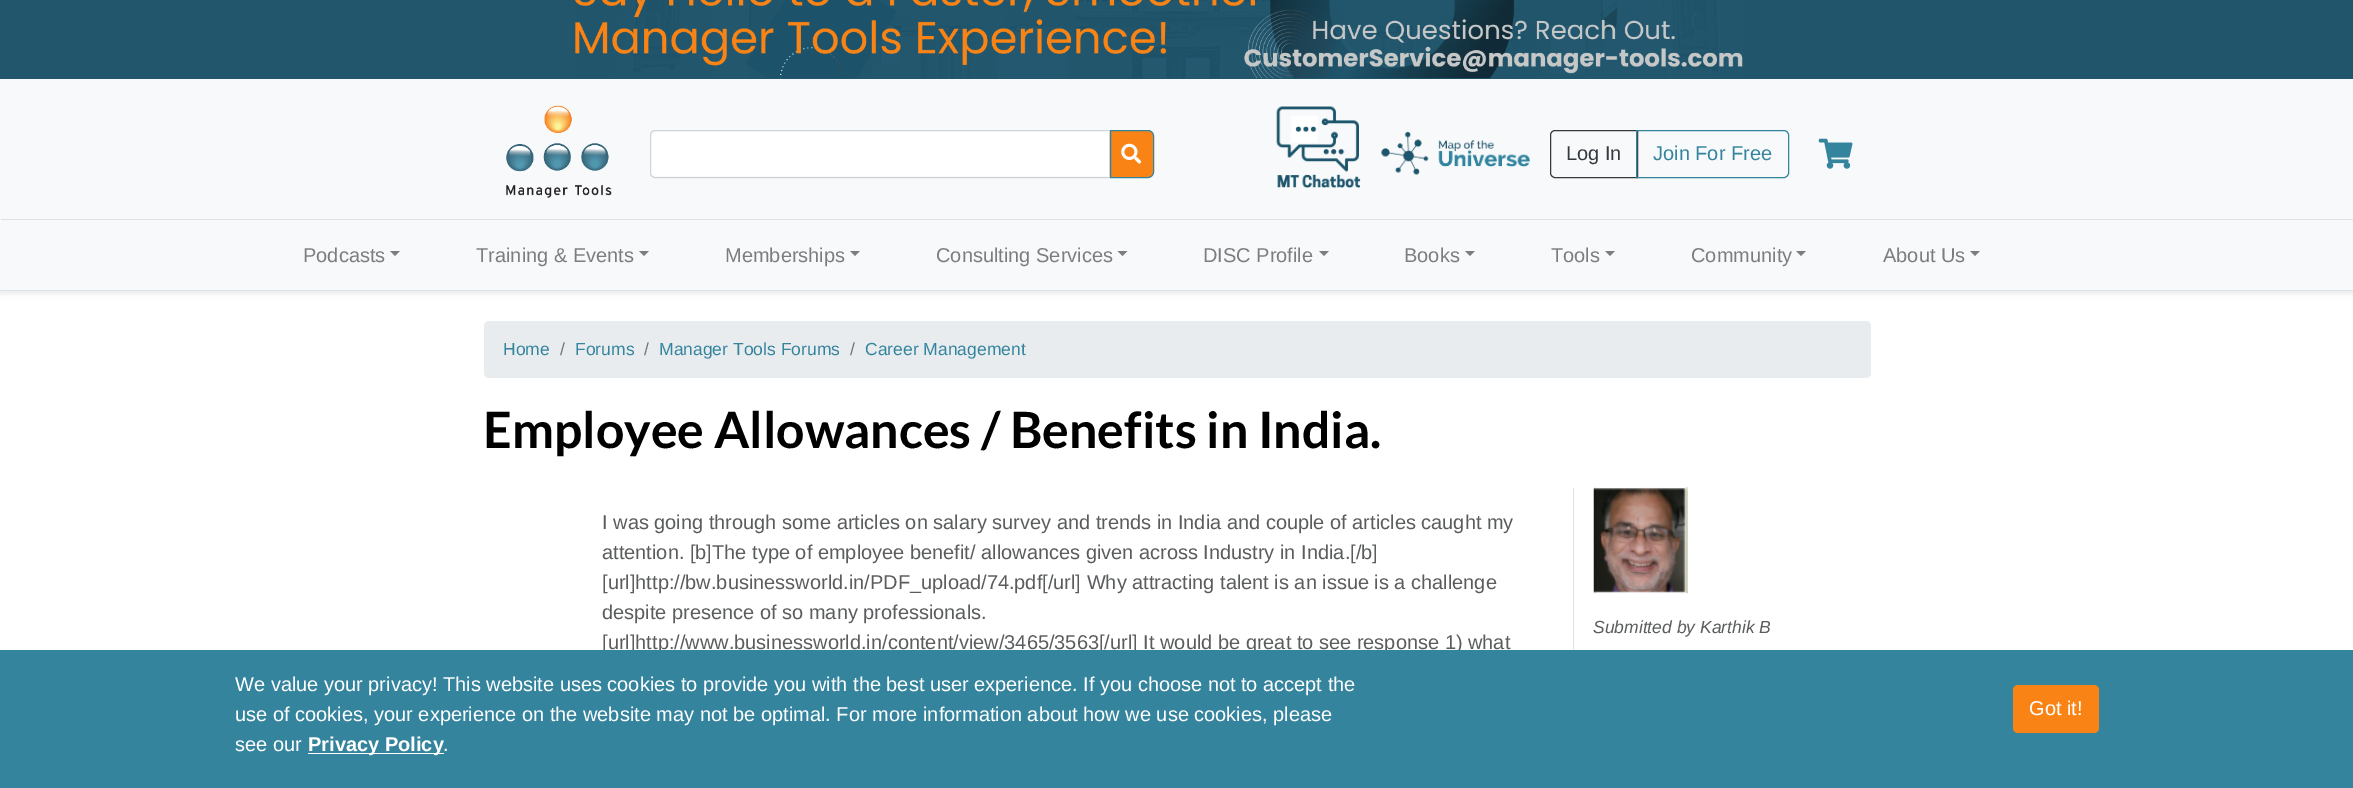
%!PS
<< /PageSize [2353 788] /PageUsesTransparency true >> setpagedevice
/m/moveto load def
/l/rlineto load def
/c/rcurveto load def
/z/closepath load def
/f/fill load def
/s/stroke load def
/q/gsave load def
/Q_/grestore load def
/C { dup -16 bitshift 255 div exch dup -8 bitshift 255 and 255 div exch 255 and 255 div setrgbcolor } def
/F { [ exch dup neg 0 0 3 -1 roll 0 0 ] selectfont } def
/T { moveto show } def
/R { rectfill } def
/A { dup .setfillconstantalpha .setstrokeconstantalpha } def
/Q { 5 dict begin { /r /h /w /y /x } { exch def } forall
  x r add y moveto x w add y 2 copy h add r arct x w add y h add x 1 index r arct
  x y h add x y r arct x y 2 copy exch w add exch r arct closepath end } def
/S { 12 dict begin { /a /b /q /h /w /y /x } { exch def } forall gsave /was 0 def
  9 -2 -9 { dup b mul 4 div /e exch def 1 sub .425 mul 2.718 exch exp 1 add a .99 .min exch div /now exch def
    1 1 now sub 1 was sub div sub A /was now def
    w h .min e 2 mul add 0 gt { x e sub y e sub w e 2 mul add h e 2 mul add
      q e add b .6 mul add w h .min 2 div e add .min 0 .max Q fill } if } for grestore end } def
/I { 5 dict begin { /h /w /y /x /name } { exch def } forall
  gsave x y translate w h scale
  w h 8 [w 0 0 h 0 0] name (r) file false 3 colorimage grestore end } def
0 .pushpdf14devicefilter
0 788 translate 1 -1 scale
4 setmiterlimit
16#FFFFFF C
0 0 2353 788 R
q 0 0 m 2353 0 l 0 79 l -2353 0 l z clip newpath
<< /ShadingType 2 /ColorSpace /DeviceRGB /Coords [1138 259 1216 -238] /Extend [true true] /Function << /FunctionType 3 /Domain [0 1] /Functions [<< /FunctionType 2 /Domain [0 1] /C0 [.129 .337 .427] /C1 [.129 .337 .427] /N 1 >> << /FunctionType 2 /Domain [0 1] /C0 [.125 .333 .424] /C1 [.125 .333 .424] /N 1 >>] /Bounds [.5] /Encode [0 1 0 1] >> >> shfill Q_
(1.rgb) 575 0 1168 79 I
16#000000 C
0 81 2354 213 0 2.5 .07 S
16#F8F9FA C
0 79 2353 211 R
16#DEE2E6 C
0 290 2353 1 R
(2.rgb) 506 105 106 93 I
16#FFFFFF C
655 131 m 454 0 l 0 45 l -454 0 l -2 0 -4 -2 -4 -4 c 0 -37 l 0 -2 2 -4 4 -4 c z f
16#CED4DA C
655 130.5 m 454.5 0 l 0 47 l -454.5 0 l -2.5 0 -4.5 -2 -4.5 -4.5 c 0 -38 l 0 -2.5 2 -4.5 4.5 -4.5 c z s
16#F98415 C
1110.5 130.5 m 37.5 0 l 3 0 5.5 2.5 5.5 5.5 c 0 36 l 0 3 -2.5 5.5 -5.5 5.5 c -37.5 0 l z q f Q_
16#34849E C
s
(3.rgb) 1121 143 21 21 I
(4.rgb) 1276 106 85 82 I
(5.rgb) 1381 132 149 43 I
16#343A40 C
1555 130.5 m 82.5 0 l 0 47 l -82.5 0 l -2.5 0 -4.5 -2 -4.5 -4.5 c 0 -38 l 0 -2.5 2 -4.5 4.5 -4.5 c z s
/LiberationSans-Regular 20 F
(Log In) 1566 160 T
16#34849E C
1636.5 130.5 m 147.5 0 l 2.5 0 4.5 2 4.5 4.5 c 0 38 l 0 2.5 -2 4.5 -4.5 4.5 c -147.5 0 l z s
(Join For Free) 1653 160 T
(6.rgb) 1818 138 35 31 I
16#DEE2E6 C
1 219 2352 1 R
16#7C7D7D C
(Podcasts) 303 262 T
390 251 m 10 0 l -5 5 l z f
(Training & Events) 476 262 T
639 251 m 10 0 l -5 5 l z f
(Memberships) 725 262 T
850 251 m 10 0 l -5 5 l z f
(Consulting Services) 936 262 T
1117.5 251 m 10 0 l -5 5 l z f
(DISC Profile) 1203 262 T
1319 251 m 10 0 l -5 5 l z f
(Books) 1404 262 T
1465 251 m 10 0 l -5 5 l z f
(Tools) 1551 262 T
1605 251 m 10 0 l -5 5 l z f
(Community) 1691 262 T
1796 251 m 10 0 l -5 5 l z f
(About Us) 1883 262 T
1970 251 m 10 0 l -5 5 l z f
16#E9ECEF C
484 321 1387 57 5 Q f
/LiberationSans-Regular 17.5 F
16#34849E C
(Home) 503 355 T
16#6C757D C
(/) 560 355 T
16#34849E C
(Forums) 575 355 T
16#6C757D C
(/) 644 355 T
16#34849E C
(Manager Tools Forums) 659 355 T
16#6C757D C
(/) 850 355 T
16#34849E C
(Career Management) 865 355 T
/Lato-Bold 50 F
16#000000 C
(Employee Allowances / Benefits in India.) 483 448 T
/LiberationSans-Regular 20 F
16#5A5C5E C
(I was going through some articles on salary survey and trends in India and couple of articles caught my) 602 529 T
(attention. [b]The type of employee benefit/ allowances given across Industry in India.[/b]) 602 559 T
([url]http://bw.businessworld.in/PDF_upload/74.pdf[/url] Why attracting talent is an issue is a challenge) 602 589 T
(despite presence of so many professionals.) 602 619 T
([url]http://www.businessworld.in/content/view/3465/3563[/url] It would be great to see response 1\) what) 602 649 T
16#DEE2E6 C
1573 488 1 162 R
(7.rgb) 1593 487 95 107 I
/LiberationSans-Italic 17.5 F
16#5A5C5E C
(Submitted by Karthik B) 1593 633 T
16#34849E C
0 650 2353 138 R
/LiberationSans-Regular 20 F
16#FFFFFF C
(We value your privacy! This website uses cookies to provide you with the best user experience. If you choose not to accept the) 235 691 T
(use of cookies, your experience on the website may not be optimal. For more information about how we use cookies, please) 235 721 T
(see our) 235 751 T
308 753 136 1 R
/LiberationSans-Bold 20 F
(Privacy Policy) 308 751 T
/LiberationSans-Regular 20 F
(.) 443 751 T
16#F98415 C
2013 685 86 48 5 Q f
16#FFFFFF C
(Got it!) 2029 715 T
.poppdf14devicefilter showpage
